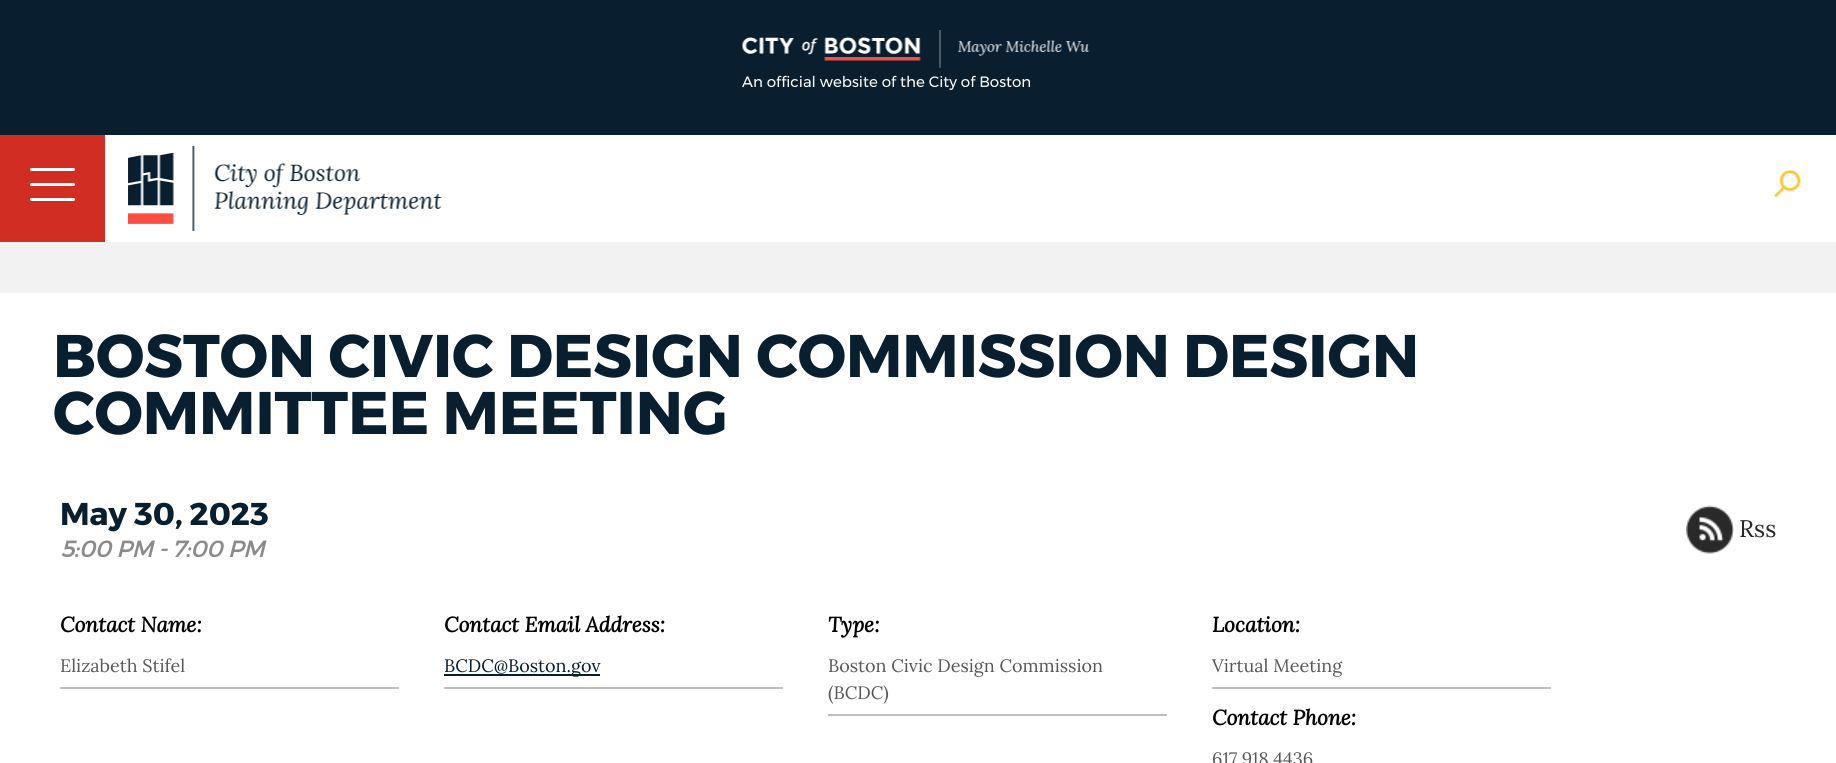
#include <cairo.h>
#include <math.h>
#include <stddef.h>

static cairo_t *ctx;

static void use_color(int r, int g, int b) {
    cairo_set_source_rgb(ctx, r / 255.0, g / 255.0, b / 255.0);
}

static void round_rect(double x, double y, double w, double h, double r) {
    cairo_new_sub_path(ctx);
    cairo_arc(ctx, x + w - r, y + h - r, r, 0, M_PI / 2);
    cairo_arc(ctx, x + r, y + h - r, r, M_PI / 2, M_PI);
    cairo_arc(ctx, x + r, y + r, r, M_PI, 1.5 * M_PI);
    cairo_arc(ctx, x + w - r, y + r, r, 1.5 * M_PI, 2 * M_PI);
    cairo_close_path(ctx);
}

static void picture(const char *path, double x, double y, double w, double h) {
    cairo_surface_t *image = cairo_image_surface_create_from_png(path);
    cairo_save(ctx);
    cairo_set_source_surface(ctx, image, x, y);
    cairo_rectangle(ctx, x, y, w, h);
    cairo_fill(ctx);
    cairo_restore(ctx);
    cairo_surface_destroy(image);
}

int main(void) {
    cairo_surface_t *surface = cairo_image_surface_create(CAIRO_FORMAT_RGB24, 1836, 763);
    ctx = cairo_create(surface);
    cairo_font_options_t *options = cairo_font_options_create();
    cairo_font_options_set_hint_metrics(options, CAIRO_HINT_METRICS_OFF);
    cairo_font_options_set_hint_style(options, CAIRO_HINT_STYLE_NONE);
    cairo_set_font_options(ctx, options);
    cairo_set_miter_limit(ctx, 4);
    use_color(242, 242, 242);
    cairo_paint(ctx);
    use_color(9, 31, 47);
    cairo_rectangle(ctx, 0, 0, 1836, 135);
    cairo_fill(ctx);
    picture("img1.png", 742, 30, 348, 38);
    cairo_select_font_face(ctx, "Montserrat", CAIRO_FONT_SLANT_NORMAL, CAIRO_FONT_WEIGHT_NORMAL);
    cairo_set_font_size(ctx, 15);
    use_color(255, 255, 255);
    cairo_move_to(ctx, 742, 87);
    cairo_show_text(ctx, "An official website of the City of Boston");
    use_color(210, 45, 35);
    cairo_rectangle(ctx, 0, 135, 105, 107);
    cairo_fill(ctx);
    use_color(255, 255, 255);
    round_rect(30, 198, 45, 3, 1.5);
    cairo_fill(ctx);
    round_rect(30, 168, 45, 3, 1.5);
    cairo_fill(ctx);
    round_rect(30, 183, 45, 3, 1.5);
    cairo_fill(ctx);
    cairo_rectangle(ctx, 105, 135, 1731, 107);
    cairo_fill(ctx);
    picture("img2.png", 128, 146, 314, 85);
    picture("img3.png", 1773, 170, 28, 28);
    cairo_rectangle(ctx, 0, 293, 1836, 470);
    cairo_fill(ctx);
    cairo_select_font_face(ctx, "Montserrat", CAIRO_FONT_SLANT_NORMAL, CAIRO_FONT_WEIGHT_BOLD);
    cairo_set_font_size(ctx, 60);
    use_color(9, 31, 47);
    cairo_move_to(ctx, 53, 377);
    cairo_show_text(ctx, "BOSTON CIVIC DESIGN COMMISSION DESIGN");
    cairo_move_to(ctx, 53, 434);
    cairo_show_text(ctx, "COMMITTEE MEETING");
    cairo_set_font_size(ctx, 31.5);
    cairo_move_to(ctx, 60, 525);
    cairo_show_text(ctx, "May 30, 2023");
    picture("img4.png", 1686, 505, 48, 49);
    cairo_select_font_face(ctx, "Lora", CAIRO_FONT_SLANT_NORMAL, CAIRO_FONT_WEIGHT_NORMAL);
    cairo_set_font_size(ctx, 24);
    use_color(41, 41, 41);
    cairo_move_to(ctx, 1739, 537);
    cairo_show_text(ctx, "Rss");
    cairo_select_font_face(ctx, "Montserrat", CAIRO_FONT_SLANT_ITALIC, CAIRO_FONT_WEIGHT_BOLD);
    cairo_set_font_size(ctx, 22.5);
    use_color(139, 139, 139);
    cairo_move_to(ctx, 60, 557);
    cairo_show_text(ctx, "5:00 PM - 7:00 PM");
    use_color(190, 190, 190);
    cairo_rectangle(ctx, 60, 687, 339, 2);
    cairo_fill(ctx);
    cairo_select_font_face(ctx, "Lora", CAIRO_FONT_SLANT_ITALIC, CAIRO_FONT_WEIGHT_BOLD);
    cairo_set_font_size(ctx, 21);
    use_color(0, 0, 0);
    cairo_move_to(ctx, 60, 632);
    cairo_show_text(ctx, "Contact Name:");
    cairo_select_font_face(ctx, "Lora", CAIRO_FONT_SLANT_NORMAL, CAIRO_FONT_WEIGHT_NORMAL);
    cairo_set_font_size(ctx, 18);
    use_color(88, 88, 91);
    cairo_move_to(ctx, 60, 672);
    cairo_show_text(ctx, "Elizabeth Stifel");
    use_color(190, 190, 190);
    cairo_rectangle(ctx, 444, 687, 339, 2);
    cairo_fill(ctx);
    cairo_select_font_face(ctx, "Lora", CAIRO_FONT_SLANT_ITALIC, CAIRO_FONT_WEIGHT_BOLD);
    cairo_set_font_size(ctx, 21);
    use_color(0, 0, 0);
    cairo_move_to(ctx, 444, 632);
    cairo_show_text(ctx, "Contact Email Address:");
    use_color(9, 31, 47);
    cairo_rectangle(ctx, 444, 674, 156, 2);
    cairo_fill(ctx);
    cairo_select_font_face(ctx, "Lora", CAIRO_FONT_SLANT_NORMAL, CAIRO_FONT_WEIGHT_NORMAL);
    cairo_set_font_size(ctx, 18);
    cairo_move_to(ctx, 444, 672);
    cairo_show_text(ctx, "BCDC@Boston.gov");
    use_color(190, 190, 190);
    cairo_rectangle(ctx, 828, 714, 339, 2);
    cairo_fill(ctx);
    cairo_select_font_face(ctx, "Lora", CAIRO_FONT_SLANT_ITALIC, CAIRO_FONT_WEIGHT_BOLD);
    cairo_set_font_size(ctx, 21);
    use_color(0, 0, 0);
    cairo_move_to(ctx, 828, 632);
    cairo_show_text(ctx, "Type:");
    cairo_select_font_face(ctx, "Lora", CAIRO_FONT_SLANT_NORMAL, CAIRO_FONT_WEIGHT_NORMAL);
    cairo_set_font_size(ctx, 18);
    use_color(88, 88, 91);
    cairo_move_to(ctx, 828, 672);
    cairo_show_text(ctx, "Boston Civic Design Commission");
    cairo_move_to(ctx, 828, 699);
    cairo_show_text(ctx, "(BCDC)");
    use_color(190, 190, 190);
    cairo_rectangle(ctx, 1212, 687, 339, 2);
    cairo_fill(ctx);
    cairo_select_font_face(ctx, "Lora", CAIRO_FONT_SLANT_ITALIC, CAIRO_FONT_WEIGHT_BOLD);
    cairo_set_font_size(ctx, 21);
    use_color(0, 0, 0);
    cairo_move_to(ctx, 1212, 632);
    cairo_show_text(ctx, "Location:");
    cairo_select_font_face(ctx, "Lora", CAIRO_FONT_SLANT_NORMAL, CAIRO_FONT_WEIGHT_NORMAL);
    cairo_set_font_size(ctx, 18);
    use_color(88, 88, 91);
    cairo_move_to(ctx, 1212, 672);
    cairo_show_text(ctx, "Virtual Meeting");
    cairo_select_font_face(ctx, "Lora", CAIRO_FONT_SLANT_ITALIC, CAIRO_FONT_WEIGHT_BOLD);
    cairo_set_font_size(ctx, 21);
    use_color(0, 0, 0);
    cairo_move_to(ctx, 1212, 725);
    cairo_show_text(ctx, "Contact Phone:");
    cairo_select_font_face(ctx, "Lora", CAIRO_FONT_SLANT_NORMAL, CAIRO_FONT_WEIGHT_NORMAL);
    cairo_set_font_size(ctx, 18);
    use_color(88, 88, 91);
    cairo_move_to(ctx, 1212, 765);
    cairo_show_text(ctx, "617.918.4436");
    cairo_surface_write_to_png(surface, "result.png");
    cairo_font_options_destroy(options);
    cairo_destroy(ctx);
    cairo_surface_destroy(surface);
    return 0;
}
